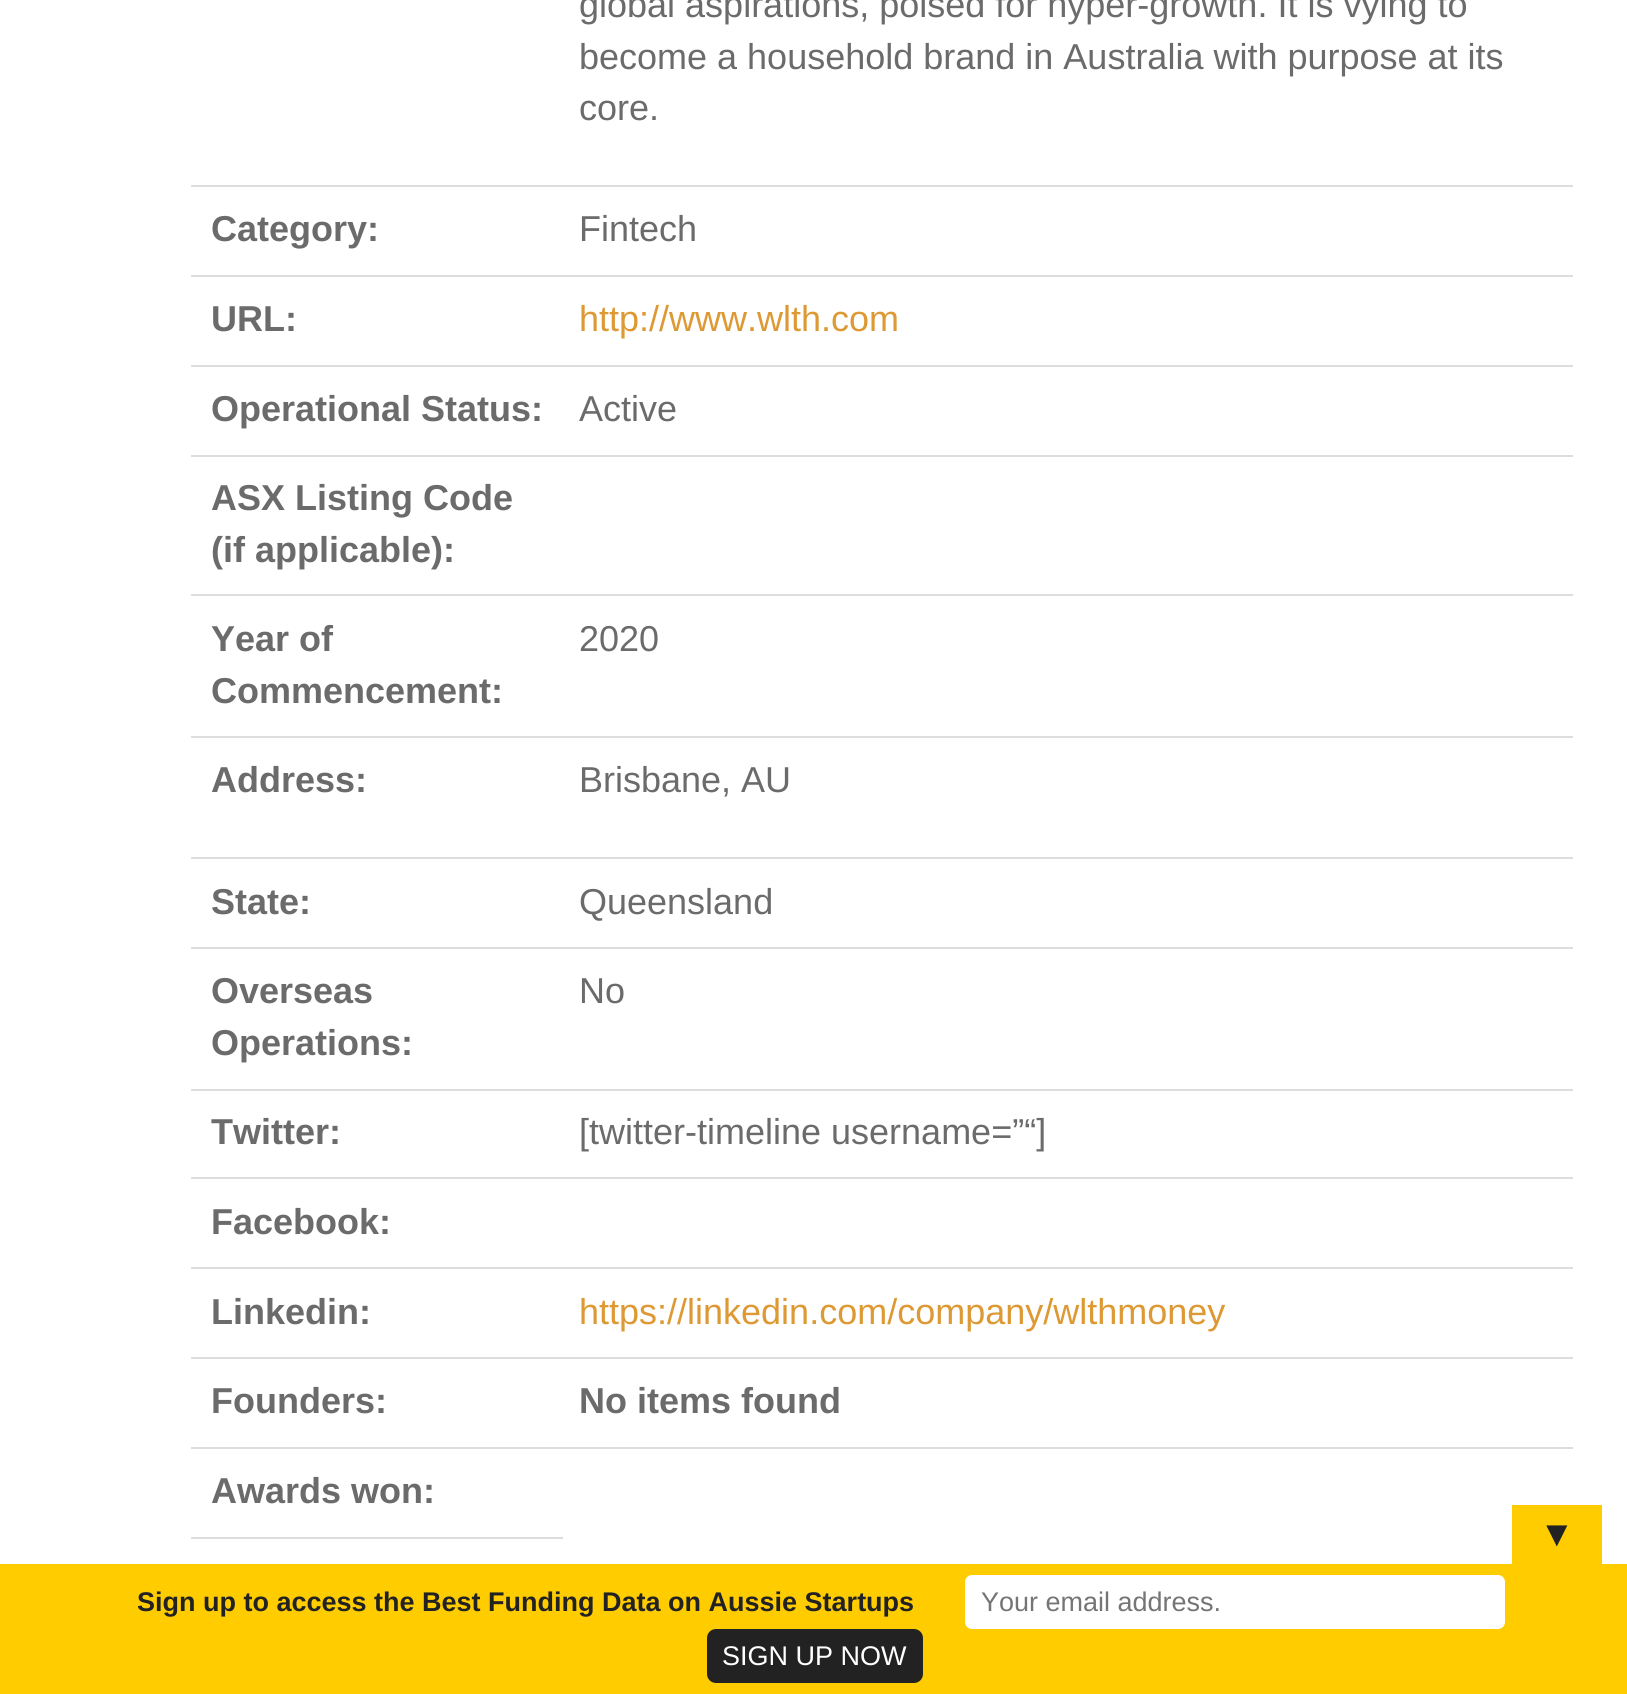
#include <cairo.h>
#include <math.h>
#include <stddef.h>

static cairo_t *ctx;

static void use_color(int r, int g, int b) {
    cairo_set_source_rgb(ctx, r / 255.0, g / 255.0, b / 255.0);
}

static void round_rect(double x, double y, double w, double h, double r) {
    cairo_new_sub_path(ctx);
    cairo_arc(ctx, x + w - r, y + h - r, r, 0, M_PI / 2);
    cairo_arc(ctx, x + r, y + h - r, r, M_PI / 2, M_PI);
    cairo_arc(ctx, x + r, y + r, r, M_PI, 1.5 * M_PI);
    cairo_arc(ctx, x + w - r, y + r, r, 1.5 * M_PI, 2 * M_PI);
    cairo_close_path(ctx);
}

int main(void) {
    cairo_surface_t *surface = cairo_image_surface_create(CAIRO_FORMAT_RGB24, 1627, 1694);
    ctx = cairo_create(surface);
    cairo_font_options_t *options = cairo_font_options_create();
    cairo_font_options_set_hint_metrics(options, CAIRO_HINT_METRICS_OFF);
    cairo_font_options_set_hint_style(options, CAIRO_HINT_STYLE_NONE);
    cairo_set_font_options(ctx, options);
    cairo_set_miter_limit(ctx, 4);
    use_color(255, 255, 255);
    cairo_paint(ctx);
    cairo_select_font_face(ctx, "Liberation Sans", CAIRO_FONT_SLANT_NORMAL, CAIRO_FONT_WEIGHT_NORMAL);
    cairo_set_font_size(ctx, 36);
    use_color(107, 107, 107);
    cairo_move_to(ctx, 579, 17);
    cairo_show_text(ctx, "global aspirations, poised for hyper-growth. It is vying to");
    cairo_move_to(ctx, 579, 69);
    cairo_show_text(ctx, "become a household brand in Australia with purpose at its");
    cairo_move_to(ctx, 579, 120);
    cairo_show_text(ctx, "core.");
    cairo_select_font_face(ctx, "Liberation Sans", CAIRO_FONT_SLANT_NORMAL, CAIRO_FONT_WEIGHT_BOLD);
    cairo_move_to(ctx, 211, 241);
    cairo_show_text(ctx, "Category:");
    use_color(221, 221, 221);
    cairo_rectangle(ctx, 191, 185, 1382, 2);
    cairo_fill(ctx);
    cairo_select_font_face(ctx, "Liberation Sans", CAIRO_FONT_SLANT_NORMAL, CAIRO_FONT_WEIGHT_NORMAL);
    use_color(107, 107, 107);
    cairo_move_to(ctx, 579, 241);
    cairo_show_text(ctx, "Fintech");
    cairo_select_font_face(ctx, "Liberation Sans", CAIRO_FONT_SLANT_NORMAL, CAIRO_FONT_WEIGHT_BOLD);
    cairo_move_to(ctx, 211, 331);
    cairo_show_text(ctx, "URL:");
    use_color(221, 221, 221);
    cairo_rectangle(ctx, 191, 275, 1382, 2);
    cairo_fill(ctx);
    cairo_select_font_face(ctx, "Liberation Sans", CAIRO_FONT_SLANT_NORMAL, CAIRO_FONT_WEIGHT_NORMAL);
    use_color(221, 153, 51);
    cairo_move_to(ctx, 579, 331);
    cairo_show_text(ctx, "http://www.wlth.com");
    cairo_select_font_face(ctx, "Liberation Sans", CAIRO_FONT_SLANT_NORMAL, CAIRO_FONT_WEIGHT_BOLD);
    use_color(107, 107, 107);
    cairo_move_to(ctx, 211, 421);
    cairo_show_text(ctx, "Operational Status:");
    use_color(221, 221, 221);
    cairo_rectangle(ctx, 191, 365, 1382, 2);
    cairo_fill(ctx);
    cairo_select_font_face(ctx, "Liberation Sans", CAIRO_FONT_SLANT_NORMAL, CAIRO_FONT_WEIGHT_NORMAL);
    use_color(107, 107, 107);
    cairo_move_to(ctx, 579, 421);
    cairo_show_text(ctx, "Active");
    use_color(221, 221, 221);
    cairo_rectangle(ctx, 191, 455, 1382, 2);
    cairo_fill(ctx);
    cairo_select_font_face(ctx, "Liberation Sans", CAIRO_FONT_SLANT_NORMAL, CAIRO_FONT_WEIGHT_BOLD);
    use_color(107, 107, 107);
    cairo_move_to(ctx, 211, 510);
    cairo_show_text(ctx, "ASX Listing Code");
    cairo_move_to(ctx, 211, 562);
    cairo_show_text(ctx, "(if applicable):");
    cairo_move_to(ctx, 211, 651);
    cairo_show_text(ctx, "Year of");
    cairo_move_to(ctx, 211, 703);
    cairo_show_text(ctx, "Commencement:");
    use_color(221, 221, 221);
    cairo_rectangle(ctx, 191, 594, 1382, 2);
    cairo_fill(ctx);
    cairo_select_font_face(ctx, "Liberation Sans", CAIRO_FONT_SLANT_NORMAL, CAIRO_FONT_WEIGHT_NORMAL);
    use_color(107, 107, 107);
    cairo_move_to(ctx, 579, 651);
    cairo_show_text(ctx, "2020");
    cairo_select_font_face(ctx, "Liberation Sans", CAIRO_FONT_SLANT_NORMAL, CAIRO_FONT_WEIGHT_BOLD);
    cairo_move_to(ctx, 211, 792);
    cairo_show_text(ctx, "Address:");
    use_color(221, 221, 221);
    cairo_rectangle(ctx, 191, 736, 1382, 2);
    cairo_fill(ctx);
    cairo_select_font_face(ctx, "Liberation Sans", CAIRO_FONT_SLANT_NORMAL, CAIRO_FONT_WEIGHT_NORMAL);
    use_color(107, 107, 107);
    cairo_move_to(ctx, 579, 792);
    cairo_show_text(ctx, "Brisbane, AU");
    cairo_select_font_face(ctx, "Liberation Sans", CAIRO_FONT_SLANT_NORMAL, CAIRO_FONT_WEIGHT_BOLD);
    cairo_move_to(ctx, 211, 914);
    cairo_show_text(ctx, "State:");
    use_color(221, 221, 221);
    cairo_rectangle(ctx, 191, 857, 1382, 2);
    cairo_fill(ctx);
    cairo_select_font_face(ctx, "Liberation Sans", CAIRO_FONT_SLANT_NORMAL, CAIRO_FONT_WEIGHT_NORMAL);
    use_color(107, 107, 107);
    cairo_move_to(ctx, 579, 914);
    cairo_show_text(ctx, "Queensland");
    cairo_select_font_face(ctx, "Liberation Sans", CAIRO_FONT_SLANT_NORMAL, CAIRO_FONT_WEIGHT_BOLD);
    cairo_move_to(ctx, 211, 1003);
    cairo_show_text(ctx, "Overseas");
    cairo_move_to(ctx, 211, 1055);
    cairo_show_text(ctx, "Operations:");
    use_color(221, 221, 221);
    cairo_rectangle(ctx, 191, 947, 1382, 2);
    cairo_fill(ctx);
    cairo_select_font_face(ctx, "Liberation Sans", CAIRO_FONT_SLANT_NORMAL, CAIRO_FONT_WEIGHT_NORMAL);
    use_color(107, 107, 107);
    cairo_move_to(ctx, 579, 1003);
    cairo_show_text(ctx, "No");
    cairo_select_font_face(ctx, "Liberation Sans", CAIRO_FONT_SLANT_NORMAL, CAIRO_FONT_WEIGHT_BOLD);
    cairo_move_to(ctx, 211, 1144);
    cairo_show_text(ctx, "Twitter:");
    use_color(221, 221, 221);
    cairo_rectangle(ctx, 191, 1089, 1382, 2);
    cairo_fill(ctx);
    cairo_select_font_face(ctx, "Liberation Sans", CAIRO_FONT_SLANT_NORMAL, CAIRO_FONT_WEIGHT_NORMAL);
    use_color(107, 107, 107);
    cairo_move_to(ctx, 579, 1144);
    cairo_show_text(ctx, "[twitter-timeline username=”“]");
    use_color(221, 221, 221);
    cairo_rectangle(ctx, 191, 1177, 1382, 2);
    cairo_fill(ctx);
    cairo_select_font_face(ctx, "Liberation Sans", CAIRO_FONT_SLANT_NORMAL, CAIRO_FONT_WEIGHT_BOLD);
    use_color(107, 107, 107);
    cairo_move_to(ctx, 211, 1234);
    cairo_show_text(ctx, "Facebook:");
    cairo_move_to(ctx, 211, 1324);
    cairo_show_text(ctx, "Linkedin:");
    use_color(221, 221, 221);
    cairo_rectangle(ctx, 191, 1267, 1382, 2);
    cairo_fill(ctx);
    cairo_select_font_face(ctx, "Liberation Sans", CAIRO_FONT_SLANT_NORMAL, CAIRO_FONT_WEIGHT_NORMAL);
    use_color(221, 153, 51);
    cairo_move_to(ctx, 579, 1324);
    cairo_show_text(ctx, "https://linkedin.com/company/wlthmoney");
    cairo_select_font_face(ctx, "Liberation Sans", CAIRO_FONT_SLANT_NORMAL, CAIRO_FONT_WEIGHT_BOLD);
    use_color(107, 107, 107);
    cairo_move_to(ctx, 211, 1413);
    cairo_show_text(ctx, "Founders:");
    use_color(221, 221, 221);
    cairo_rectangle(ctx, 191, 1357, 1382, 2);
    cairo_fill(ctx);
    use_color(107, 107, 107);
    cairo_move_to(ctx, 579, 1413);
    cairo_show_text(ctx, "No items found");
    use_color(221, 221, 221);
    cairo_rectangle(ctx, 191, 1447, 1382, 2);
    cairo_fill(ctx);
    use_color(107, 107, 107);
    cairo_move_to(ctx, 211, 1503);
    cairo_show_text(ctx, "Awards won:");
    use_color(221, 221, 221);
    cairo_rectangle(ctx, 191, 1537, 372, 2);
    cairo_fill(ctx);
    use_color(255, 204, 0);
    cairo_rectangle(ctx, 1512, 1505, 90, 59);
    cairo_fill(ctx);
    cairo_select_font_face(ctx, "Liberation Sans", CAIRO_FONT_SLANT_NORMAL, CAIRO_FONT_WEIGHT_NORMAL);
    use_color(34, 34, 34);
    cairo_move_to(ctx, 1539, 1546);
    cairo_show_text(ctx, "▼");
    use_color(255, 204, 0);
    cairo_rectangle(ctx, 0, 1564, 1627, 130);
    cairo_fill(ctx);
    cairo_select_font_face(ctx, "Liberation Sans", CAIRO_FONT_SLANT_NORMAL, CAIRO_FONT_WEIGHT_BOLD);
    cairo_set_font_size(ctx, 27);
    use_color(34, 34, 34);
    cairo_move_to(ctx, 137, 1611);
    cairo_show_text(ctx, "Sign up to access the Best Funding Data on Aussie Startups");
    use_color(255, 255, 255);
    round_rect(966, 1576, 538, 52, 6);
    cairo_fill_preserve(ctx);
    cairo_stroke(ctx);
    cairo_select_font_face(ctx, "Liberation Sans", CAIRO_FONT_SLANT_NORMAL, CAIRO_FONT_WEIGHT_NORMAL);
    use_color(117, 117, 117);
    cairo_move_to(ctx, 981, 1611);
    cairo_show_text(ctx, "Your email address.");
    use_color(34, 34, 34);
    round_rect(708, 1630, 214, 52, 8);
    cairo_fill_preserve(ctx);
    cairo_stroke(ctx);
    use_color(255, 255, 255);
    cairo_move_to(ctx, 722, 1665);
    cairo_show_text(ctx, "SIGN UP NOW");
    cairo_surface_write_to_png(surface, "result.png");
    cairo_font_options_destroy(options);
    cairo_destroy(ctx);
    cairo_surface_destroy(surface);
    return 0;
}
